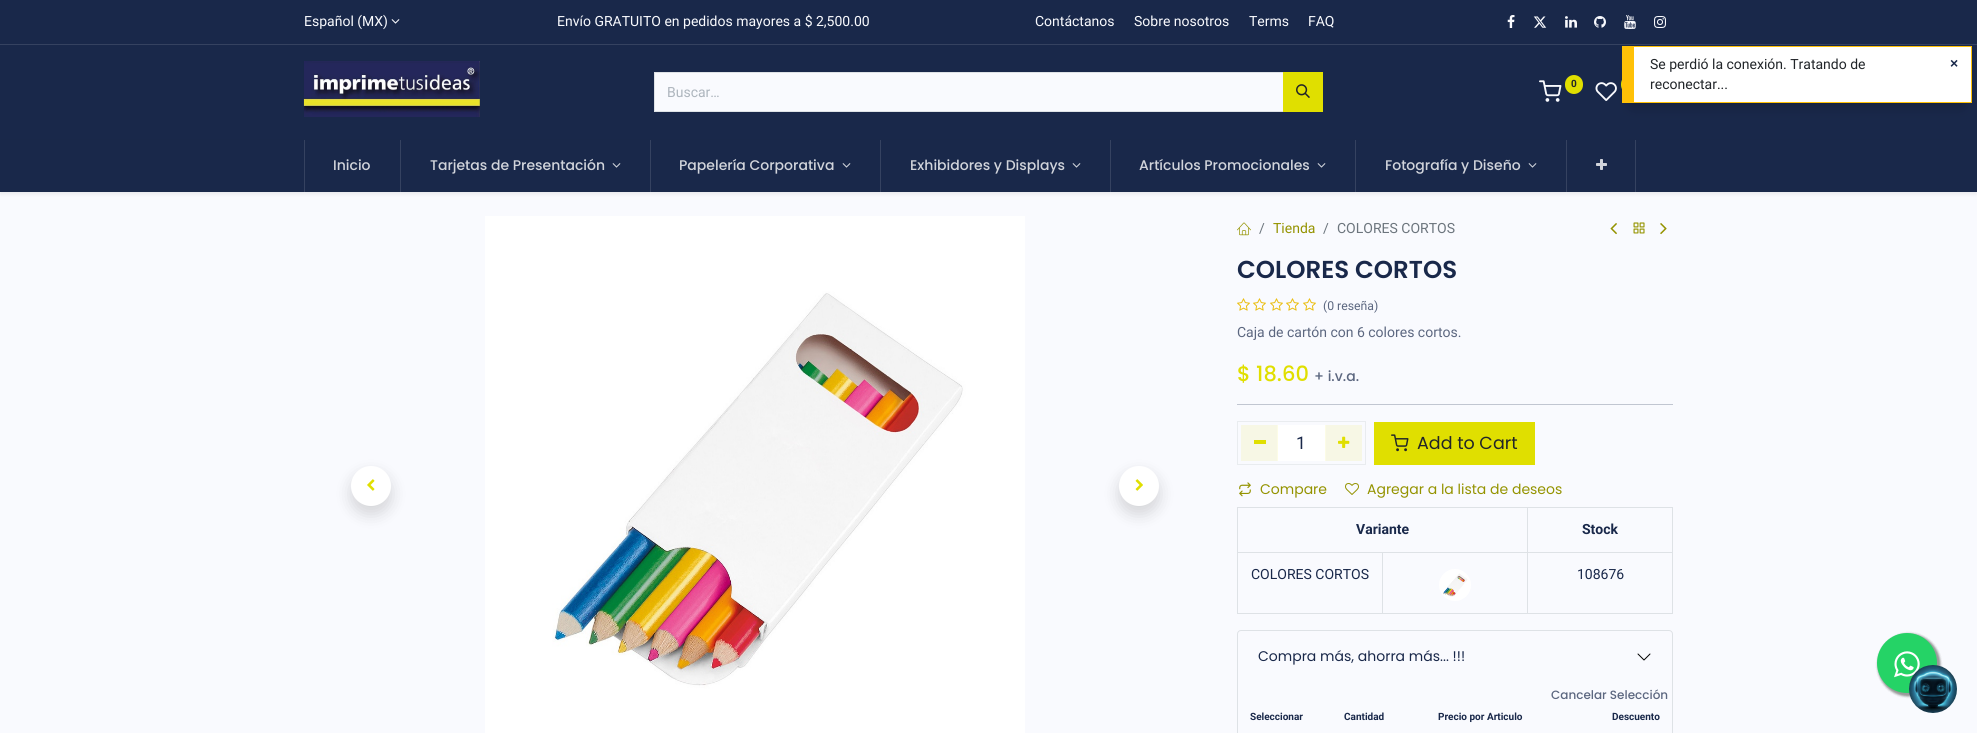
#include <cairo.h>
#include <math.h>
#include <stddef.h>

static cairo_t *ctx;

static void use_color(int r, int g, int b) {
    cairo_set_source_rgb(ctx, r / 255.0, g / 255.0, b / 255.0);
}

static void round_rect(double x, double y, double w, double h, double r) {
    cairo_new_sub_path(ctx);
    cairo_arc(ctx, x + w - r, y + h - r, r, 0, M_PI / 2);
    cairo_arc(ctx, x + r, y + h - r, r, M_PI / 2, M_PI);
    cairo_arc(ctx, x + r, y + r, r, M_PI, 1.5 * M_PI);
    cairo_arc(ctx, x + w - r, y + r, r, 1.5 * M_PI, 2 * M_PI);
    cairo_close_path(ctx);
}

static void shadow(double x, double y, double w, double h, double r, double blur, double alpha) {
    cairo_push_group_with_content(ctx, CAIRO_CONTENT_ALPHA);
    cairo_set_operator(ctx, CAIRO_OPERATOR_SOURCE);
    for (int i = 15; i >= -15 && fmin(w, h) + blur * i / 3 > 0; i -= 2) {
        double e = blur * i / 6;
        cairo_set_source_rgba(ctx, 0, 0, 0, alpha * erfc((i - 1) / 8.5) / 2);
        round_rect(x - e, y - e, w + 2 * e, h + 2 * e, fmax(0, fmin(r + e + blur * .6, fmin(w, h) / 2 + e)));
        cairo_fill(ctx);
    }
    cairo_pattern_t *soft = cairo_pop_group(ctx);
    cairo_mask(ctx, soft);
    cairo_pattern_destroy(soft);
}

static void picture(const char *path, double x, double y, double w, double h) {
    cairo_surface_t *image = cairo_image_surface_create_from_png(path);
    cairo_save(ctx);
    cairo_set_source_surface(ctx, image, x, y);
    cairo_rectangle(ctx, x, y, w, h);
    cairo_fill(ctx);
    cairo_restore(ctx);
    cairo_surface_destroy(image);
}

int main(void) {
    cairo_surface_t *surface = cairo_image_surface_create(CAIRO_FORMAT_RGB24, 1977, 733);
    ctx = cairo_create(surface);
    cairo_font_options_t *options = cairo_font_options_create();
    cairo_font_options_set_hint_metrics(options, CAIRO_HINT_METRICS_OFF);
    cairo_font_options_set_hint_style(options, CAIRO_HINT_STYLE_NONE);
    cairo_set_font_options(ctx, options);
    cairo_set_miter_limit(ctx, 4);
    use_color(249, 250, 254);
    cairo_paint(ctx);
    use_color(247, 247, 229);
    cairo_rectangle(ctx, 1326, 425, 36, 36);
    cairo_fill(ctx);
    cairo_rectangle(ctx, 1241, 425, 36, 36);
    cairo_fill(ctx);
    use_color(25, 40, 74);
    cairo_rectangle(ctx, 0, 0, 1977, 44);
    cairo_fill(ctx);
    use_color(53, 66, 96);
    cairo_rectangle(ctx, 0, 44, 1977, 1);
    cairo_fill(ctx);
    cairo_select_font_face(ctx, "Roboto", CAIRO_FONT_SLANT_NORMAL, CAIRO_FONT_WEIGHT_NORMAL);
    cairo_set_font_size(ctx, 14);
    use_color(249, 250, 254);
    cairo_move_to(ctx, 304, 26);
    cairo_show_text(ctx, "Español (MX)");
    picture("img1.png", 391, 19, 9, 5);
    cairo_move_to(ctx, 557, 26);
    cairo_show_text(ctx, "Envío GRATUITO en pedidos mayores a $ 2,500.00");
    cairo_move_to(ctx, 1035, 26);
    cairo_show_text(ctx, "Contáctanos");
    cairo_move_to(ctx, 1134, 26);
    cairo_show_text(ctx, "Sobre nosotros");
    cairo_move_to(ctx, 1249, 26);
    cairo_show_text(ctx, "Terms");
    cairo_move_to(ctx, 1308, 26);
    cairo_show_text(ctx, "FAQ");
    picture("img2.png", 1507, 15, 8, 13);
    picture("img3.png", 1533, 16, 14, 12);
    picture("img4.png", 1565, 16, 12, 12);
    picture("img5.png", 1594, 16, 12, 12);
    picture("img6.png", 1624, 15, 12, 14);
    picture("img7.png", 1654, 16, 12, 12);
    use_color(25, 40, 74);
    cairo_rectangle(ctx, 0, 45, 1977, 95);
    cairo_fill(ctx);
    picture("img8.png", 303, 61, 177, 56);
    picture("img9.png", 1539, 80, 23, 22);
    use_color(224, 223, 0);
    round_rect(1565, 75, 18, 19, 9);
    cairo_fill(ctx);
    cairo_select_font_face(ctx, "Roboto", CAIRO_FONT_SLANT_NORMAL, CAIRO_FONT_WEIGHT_BOLD);
    cairo_set_font_size(ctx, 10);
    use_color(33, 37, 41);
    cairo_move_to(ctx, 1571, 87);
    cairo_show_text(ctx, "0");
    picture("img10.png", 1595, 82, 22, 19);
    use_color(224, 223, 0);
    round_rect(1621, 75, 18, 19, 9);
    cairo_fill(ctx);
    use_color(249, 250, 254);
    cairo_rectangle(ctx, 654.5, 72.5, 629, 39);
    cairo_fill_preserve(ctx);
    use_color(222, 226, 230);
    cairo_set_line_width(ctx, 1);
    cairo_stroke(ctx);
    cairo_select_font_face(ctx, "Roboto", CAIRO_FONT_SLANT_NORMAL, CAIRO_FONT_WEIGHT_NORMAL);
    cairo_set_font_size(ctx, 14);
    use_color(173, 181, 189);
    cairo_move_to(ctx, 667, 97);
    cairo_show_text(ctx, "Buscar…");
    use_color(224, 223, 0);
    cairo_rectangle(ctx, 1283, 72, 40, 40);
    cairo_fill(ctx);
    picture("img11.png", 1296, 84, 14, 14);
    use_color(0, 0, 0);
    shadow(0, 142, 1977, 52, 0, 2, 0.07);
    use_color(25, 40, 74);
    cairo_rectangle(ctx, 0, 140, 1977, 52);
    cairo_fill(ctx);
    use_color(53, 66, 96);
    cairo_rectangle(ctx, 304, 140, 1, 52);
    cairo_fill(ctx);
    cairo_select_font_face(ctx, "Poppins Medium", CAIRO_FONT_SLANT_NORMAL, CAIRO_FONT_WEIGHT_NORMAL);
    use_color(209, 212, 219);
    cairo_move_to(ctx, 333, 170);
    cairo_show_text(ctx, "Inicio");
    use_color(53, 66, 96);
    cairo_rectangle(ctx, 400, 140, 1, 52);
    cairo_fill(ctx);
    use_color(209, 212, 219);
    cairo_move_to(ctx, 430, 170);
    cairo_show_text(ctx, "Tarjetas de Presentación");
    picture("img12.png", 612, 163, 9, 5);
    use_color(53, 66, 96);
    cairo_rectangle(ctx, 650, 140, 1, 52);
    cairo_fill(ctx);
    use_color(209, 212, 219);
    cairo_move_to(ctx, 679, 170);
    cairo_show_text(ctx, "Papelería Corporativa");
    picture("img12.png", 842, 163, 9, 5);
    use_color(53, 66, 96);
    cairo_rectangle(ctx, 880, 140, 1, 52);
    cairo_fill(ctx);
    use_color(209, 212, 219);
    cairo_move_to(ctx, 910, 170);
    cairo_show_text(ctx, "Exhibidores y Displays");
    picture("img12.png", 1072, 163, 9, 5);
    use_color(53, 66, 96);
    cairo_rectangle(ctx, 1110, 140, 1, 52);
    cairo_fill(ctx);
    use_color(209, 212, 219);
    cairo_move_to(ctx, 1139, 170);
    cairo_show_text(ctx, "Artículos Promocionales");
    picture("img12.png", 1317, 163, 9, 5);
    use_color(53, 66, 96);
    cairo_rectangle(ctx, 1355, 140, 1, 52);
    cairo_fill(ctx);
    use_color(209, 212, 219);
    cairo_move_to(ctx, 1385, 170);
    cairo_show_text(ctx, "Fotografía y Diseño");
    picture("img12.png", 1528, 163, 9, 5);
    use_color(53, 66, 96);
    cairo_rectangle(ctx, 1635, 140, 1, 52);
    cairo_fill(ctx);
    cairo_rectangle(ctx, 1566, 140, 1, 52);
    cairo_fill(ctx);
    picture("img13.png", 1596, 159, 11, 11);
    use_color(0, 0, 0);
    shadow(351, 474, 40, 40, 20, 8, 0.15);
    use_color(255, 255, 255);
    cairo_arc(ctx, 371, 486, 20, 0, 2 * M_PI);
    cairo_fill(ctx);
    picture("img14.png", 367, 479, 8, 12);
    picture("img15.png", 485, 216, 540, 517);
    use_color(0, 0, 0);
    shadow(1119, 474, 40, 40, 20, 8, 0.15);
    use_color(255, 255, 255);
    cairo_arc(ctx, 1139, 486, 20, 0, 2 * M_PI);
    cairo_fill(ctx);
    picture("img16.png", 1135, 479, 8, 12);
    picture("img17.png", 1237, 222, 14, 14);
    cairo_select_font_face(ctx, "Roboto", CAIRO_FONT_SLANT_NORMAL, CAIRO_FONT_WEIGHT_NORMAL);
    use_color(108, 117, 125);
    cairo_move_to(ctx, 1259, 233);
    cairo_show_text(ctx, "/");
    use_color(148, 147, 0);
    cairo_move_to(ctx, 1273, 233);
    cairo_show_text(ctx, "Tienda");
    use_color(108, 117, 125);
    cairo_move_to(ctx, 1323, 233);
    cairo_show_text(ctx, "/");
    cairo_move_to(ctx, 1337, 233);
    cairo_show_text(ctx, "COLORES CORTOS");
    picture("img18.png", 1610, 223, 7, 12);
    picture("img19.png", 1633, 222, 12, 12);
    picture("img20.png", 1660, 223, 7, 12);
    cairo_select_font_face(ctx, "Poppins SemiBold", CAIRO_FONT_SLANT_NORMAL, CAIRO_FONT_WEIGHT_NORMAL);
    cairo_set_font_size(ctx, 24.5);
    use_color(25, 40, 74);
    cairo_move_to(ctx, 1237, 278);
    cairo_show_text(ctx, "COLORES CORTOS");
    picture("img21.png", 1237, 298, 13, 13);
    picture("img21.png", 1253, 298, 13, 13);
    picture("img21.png", 1270, 298, 13, 13);
    picture("img21.png", 1286, 298, 13, 13);
    picture("img21.png", 1303, 298, 13, 13);
    cairo_select_font_face(ctx, "Roboto", CAIRO_FONT_SLANT_NORMAL, CAIRO_FONT_WEIGHT_NORMAL);
    cairo_set_font_size(ctx, 12.25);
    use_color(92, 103, 128);
    cairo_move_to(ctx, 1323, 310);
    cairo_show_text(ctx, "(0 reseña)");
    cairo_set_font_size(ctx, 14);
    cairo_move_to(ctx, 1237, 337);
    cairo_show_text(ctx, "Caja de cartón con 6 colores cortos.");
    cairo_select_font_face(ctx, "Poppins Medium", CAIRO_FONT_SLANT_NORMAL, CAIRO_FONT_WEIGHT_NORMAL);
    cairo_set_font_size(ctx, 21);
    use_color(224, 223, 0);
    cairo_move_to(ctx, 1237, 381);
    cairo_show_text(ctx, "$ 18.60");
    cairo_set_font_size(ctx, 14);
    use_color(92, 103, 128);
    cairo_move_to(ctx, 1314, 381);
    cairo_show_text(ctx, "+ i.v.a.");
    use_color(193, 198, 209);
    cairo_rectangle(ctx, 1237, 404, 436, 1);
    cairo_fill(ctx);
    cairo_rectangle(ctx, 1237.5, 421.5, 128, 43);
    use_color(233, 236, 239);
    cairo_stroke(ctx);
    use_color(224, 223, 0);
    cairo_rectangle(ctx, 1254, 440, 12, 4);
    cairo_fill(ctx);
    use_color(255, 255, 255);
    cairo_rectangle(ctx, 1278, 425, 47, 36);
    cairo_fill(ctx);
    use_color(252, 252, 230);
    cairo_rectangle(ctx, 1325, 425, 1, 36);
    cairo_fill(ctx);
    cairo_rectangle(ctx, 1277, 425, 1, 36);
    cairo_fill(ctx);
    cairo_select_font_face(ctx, "Roboto", CAIRO_FONT_SLANT_NORMAL, CAIRO_FONT_WEIGHT_NORMAL);
    cairo_set_font_size(ctx, 17.5);
    use_color(25, 40, 74);
    cairo_move_to(ctx, 1296, 449);
    cairo_show_text(ctx, "1");
    picture("img22.png", 1338, 436, 12, 12);
    use_color(224, 223, 0);
    cairo_rectangle(ctx, 1374, 422, 161, 43);
    cairo_fill(ctx);
    picture("img23.png", 1391, 434, 18, 18);
    cairo_select_font_face(ctx, "Poppins", CAIRO_FONT_SLANT_NORMAL, CAIRO_FONT_WEIGHT_NORMAL);
    use_color(33, 37, 41);
    cairo_move_to(ctx, 1417, 449);
    cairo_show_text(ctx, "Add to Cart");
    picture("img24.png", 1239, 482, 12, 15);
    cairo_set_font_size(ctx, 14);
    use_color(148, 147, 0);
    cairo_move_to(ctx, 1260, 494);
    cairo_show_text(ctx, "Compare");
    picture("img25.png", 1345, 483, 14, 12);
    cairo_move_to(ctx, 1367, 494);
    cairo_show_text(ctx, "Agregar a la lista de deseos");
    use_color(222, 226, 230);
    cairo_rectangle(ctx, 1237, 507, 436, 1);
    cairo_fill(ctx);
    cairo_select_font_face(ctx, "Roboto", CAIRO_FONT_SLANT_NORMAL, CAIRO_FONT_WEIGHT_BOLD);
    use_color(25, 40, 74);
    cairo_move_to(ctx, 1356, 534);
    cairo_show_text(ctx, "Variante");
    cairo_move_to(ctx, 1582, 534);
    cairo_show_text(ctx, "Stock");
    use_color(222, 226, 230);
    cairo_rectangle(ctx, 1237, 552, 436, 1);
    cairo_fill(ctx);
    cairo_rectangle(ctx, 1237, 613, 436, 1);
    cairo_fill(ctx);
    cairo_rectangle(ctx, 1237, 507, 1, 107);
    cairo_fill(ctx);
    cairo_select_font_face(ctx, "Roboto", CAIRO_FONT_SLANT_NORMAL, CAIRO_FONT_WEIGHT_NORMAL);
    use_color(25, 40, 74);
    cairo_move_to(ctx, 1251, 579);
    cairo_show_text(ctx, "COLORES CORTOS");
    use_color(222, 226, 230);
    cairo_rectangle(ctx, 1382, 552, 1, 62);
    cairo_fill(ctx);
    picture("img26.png", 1439, 569, 32, 32);
    cairo_rectangle(ctx, 1672, 507, 1, 107);
    cairo_fill(ctx);
    cairo_rectangle(ctx, 1527, 507, 1, 107);
    cairo_fill(ctx);
    use_color(25, 40, 74);
    cairo_move_to(ctx, 1577, 579);
    cairo_show_text(ctx, "108676");
    cairo_new_path(ctx);
    cairo_move_to(ctx, 1241, 630.5);
    cairo_line_to(ctx, 1669, 630.5);
    cairo_curve_to(ctx, 1671, 630.5, 1672.5, 632, 1672.5, 634);
    cairo_line_to(ctx, 1672.5, 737.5);
    cairo_line_to(ctx, 1237.5, 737.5);
    cairo_line_to(ctx, 1237.5, 634);
    cairo_curve_to(ctx, 1237.5, 632, 1239, 630.5, 1241, 630.5);
    cairo_close_path(ctx);
    use_color(222, 226, 230);
    cairo_stroke(ctx);
    cairo_select_font_face(ctx, "Poppins", CAIRO_FONT_SLANT_NORMAL, CAIRO_FONT_WEIGHT_NORMAL);
    use_color(25, 40, 74);
    cairo_move_to(ctx, 1258, 661);
    cairo_show_text(ctx, "Compra más, ahorra más... !!!");
    picture("img27.png", 1637, 653, 14, 8);
    cairo_select_font_face(ctx, "Poppins Medium", CAIRO_FONT_SLANT_NORMAL, CAIRO_FONT_WEIGHT_NORMAL);
    cairo_set_font_size(ctx, 12);
    use_color(92, 103, 128);
    cairo_move_to(ctx, 1551, 699);
    cairo_show_text(ctx, "Cancelar Selección");
    cairo_select_font_face(ctx, "Roboto", CAIRO_FONT_SLANT_NORMAL, CAIRO_FONT_WEIGHT_BOLD);
    cairo_set_font_size(ctx, 10);
    use_color(25, 40, 74);
    cairo_move_to(ctx, 1250, 720);
    cairo_show_text(ctx, "Seleccionar");
    cairo_move_to(ctx, 1344, 720);
    cairo_show_text(ctx, "Cantidad");
    cairo_move_to(ctx, 1438, 720);
    cairo_show_text(ctx, "Precio por Articulo");
    cairo_move_to(ctx, 1612, 720);
    cairo_show_text(ctx, "Descuento");
    use_color(153, 153, 153);
    shadow(1879, 635, 60, 60, 30, 1.5, 1);
    shadow(1879, 635, 60, 60, 30, 1.5, 1);
    shadow(1879, 635, 60, 60, 30, 1.5, 1);
    shadow(1879, 635, 60, 60, 30, 1.5, 1);
    use_color(37, 211, 102);
    cairo_arc(ctx, 1907, 663, 30, 0, 2 * M_PI);
    cairo_fill(ctx);
    picture("img28.png", 1894, 651, 26, 27);
    use_color(0, 0, 0);
    shadow(1632, 68, 330, 37, 0, 7, 0.25);
    use_color(255, 255, 255);
    cairo_rectangle(ctx, 1634, 47, 337, 55);
    cairo_fill(ctx);
    use_color(255, 193, 7);
    cairo_rectangle(ctx, 1634, 46, 338, 1);
    cairo_fill(ctx);
    cairo_rectangle(ctx, 1971, 46, 1, 57);
    cairo_fill(ctx);
    cairo_rectangle(ctx, 1634, 102, 338, 1);
    cairo_fill(ctx);
    cairo_rectangle(ctx, 1622, 46, 12, 57);
    cairo_fill(ctx);
    cairo_select_font_face(ctx, "Roboto", CAIRO_FONT_SLANT_NORMAL, CAIRO_FONT_WEIGHT_NORMAL);
    cairo_set_font_size(ctx, 14);
    use_color(33, 37, 41);
    cairo_move_to(ctx, 1650, 69);
    cairo_show_text(ctx, "Se perdió la conexión. Tratando de");
    cairo_move_to(ctx, 1650, 89);
    cairo_show_text(ctx, "reconectar...");
    cairo_select_font_face(ctx, "Liberation Sans", CAIRO_FONT_SLANT_NORMAL, CAIRO_FONT_WEIGHT_BOLD);
    use_color(25, 40, 74);
    cairo_move_to(ctx, 1950, 68);
    cairo_show_text(ctx, "×");
    picture("img29.png", 1909, 665, 48, 48);
    cairo_surface_write_to_png(surface, "result.png");
    cairo_font_options_destroy(options);
    cairo_destroy(ctx);
    cairo_surface_destroy(surface);
    return 0;
}
